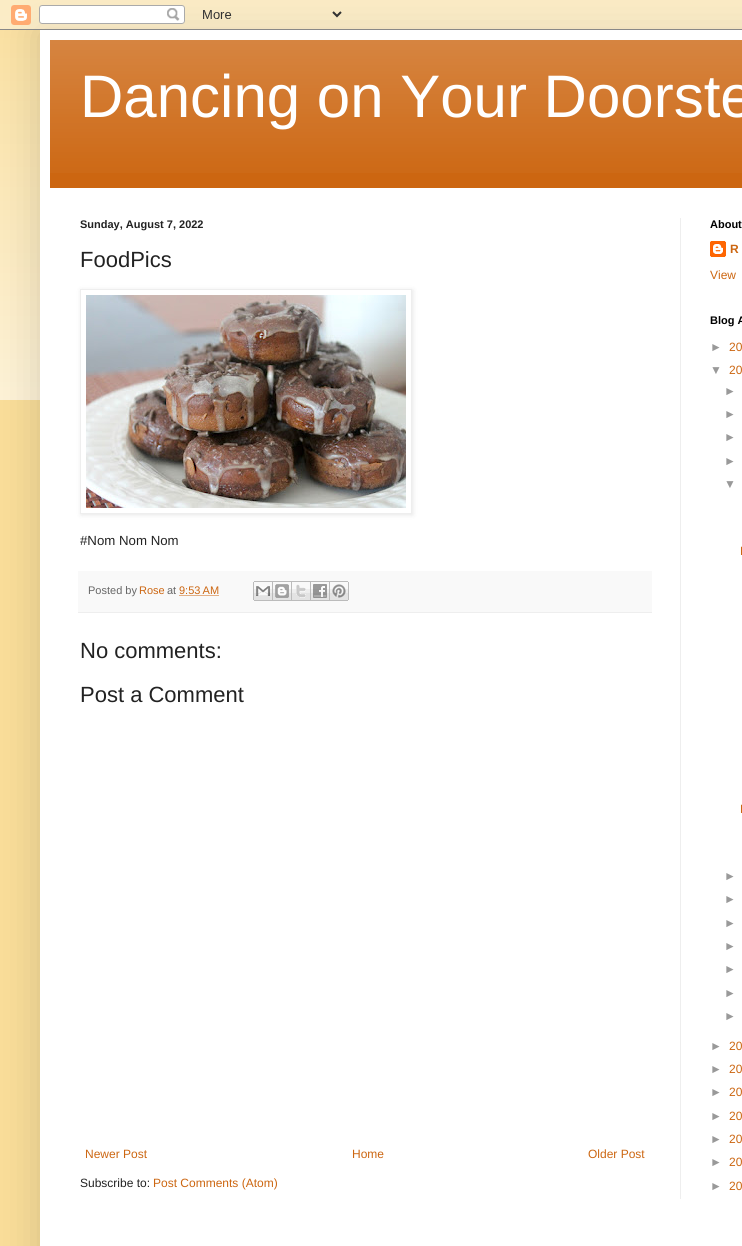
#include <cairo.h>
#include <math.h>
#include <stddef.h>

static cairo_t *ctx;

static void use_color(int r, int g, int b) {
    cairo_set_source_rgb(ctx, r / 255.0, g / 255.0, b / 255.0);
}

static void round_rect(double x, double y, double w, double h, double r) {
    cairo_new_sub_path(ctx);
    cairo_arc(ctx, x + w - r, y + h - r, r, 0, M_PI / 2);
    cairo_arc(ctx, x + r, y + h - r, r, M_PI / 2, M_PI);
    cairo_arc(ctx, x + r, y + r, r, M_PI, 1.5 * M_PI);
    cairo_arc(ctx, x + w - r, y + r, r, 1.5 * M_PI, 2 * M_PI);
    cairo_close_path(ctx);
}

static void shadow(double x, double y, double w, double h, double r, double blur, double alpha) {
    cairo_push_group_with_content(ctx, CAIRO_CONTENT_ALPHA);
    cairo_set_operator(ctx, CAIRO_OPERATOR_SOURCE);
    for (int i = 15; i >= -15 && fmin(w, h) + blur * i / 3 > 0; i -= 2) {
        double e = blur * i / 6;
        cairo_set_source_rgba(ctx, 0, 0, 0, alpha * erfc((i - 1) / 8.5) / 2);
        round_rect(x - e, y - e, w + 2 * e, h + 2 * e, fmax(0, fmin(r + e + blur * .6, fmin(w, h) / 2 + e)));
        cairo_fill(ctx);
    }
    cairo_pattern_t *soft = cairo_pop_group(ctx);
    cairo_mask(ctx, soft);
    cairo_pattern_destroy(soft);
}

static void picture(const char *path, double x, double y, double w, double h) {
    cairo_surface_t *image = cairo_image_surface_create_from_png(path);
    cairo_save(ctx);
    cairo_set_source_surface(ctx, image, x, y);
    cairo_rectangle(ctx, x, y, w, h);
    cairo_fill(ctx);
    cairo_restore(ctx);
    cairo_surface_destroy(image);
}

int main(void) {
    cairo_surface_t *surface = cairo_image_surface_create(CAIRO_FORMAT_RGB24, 742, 1246);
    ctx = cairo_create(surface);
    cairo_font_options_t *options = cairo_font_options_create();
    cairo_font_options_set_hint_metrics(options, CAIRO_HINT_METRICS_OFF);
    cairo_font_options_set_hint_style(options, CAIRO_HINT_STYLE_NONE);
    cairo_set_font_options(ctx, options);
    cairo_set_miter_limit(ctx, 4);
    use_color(249, 221, 153);
    cairo_paint(ctx);
    picture("img1.png", 0, 0, 742, 400);
    use_color(0, 0, 0);
    shadow(40, 30, 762, 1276, 0, 20, 0.15);
    picture("img2.png", 0, 0, 742, 30);
    use_color(255, 255, 255);
    cairo_rectangle(ctx, 40, 30, 702, 1216);
    cairo_fill(ctx);
    use_color(204, 102, 17);
    cairo_rectangle(ctx, 50, 40, 692, 148);
    cairo_fill(ctx);
    picture("img3.png", 50, 40, 692, 133);
    cairo_select_font_face(ctx, "Liberation Sans", CAIRO_FONT_SLANT_NORMAL, CAIRO_FONT_WEIGHT_NORMAL);
    cairo_set_font_size(ctx, 60);
    use_color(255, 255, 255);
    cairo_move_to(ctx, 80, 117);
    cairo_show_text(ctx, "Dancing on Your Doorste");
    use_color(238, 238, 238);
    cairo_rectangle(ctx, 680, 218, 1, 981);
    cairo_fill(ctx);
    cairo_select_font_face(ctx, "Liberation Sans", CAIRO_FONT_SLANT_NORMAL, CAIRO_FONT_WEIGHT_BOLD);
    cairo_set_font_size(ctx, 11);
    use_color(34, 34, 34);
    cairo_move_to(ctx, 80, 228);
    cairo_show_text(ctx, "Sunday, August 7, 2022");
    cairo_select_font_face(ctx, "Liberation Sans", CAIRO_FONT_SLANT_NORMAL, CAIRO_FONT_WEIGHT_NORMAL);
    cairo_set_font_size(ctx, 22);
    cairo_move_to(ctx, 80, 267);
    cairo_show_text(ctx, "FoodPics");
    cairo_save(ctx);
    cairo_set_fill_rule(ctx, CAIRO_FILL_RULE_EVEN_ODD);
    cairo_new_path(ctx);
    cairo_move_to(ctx, 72, 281);
    cairo_line_to(ctx, 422, 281);
    cairo_line_to(ctx, 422, 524);
    cairo_line_to(ctx, 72, 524);
    cairo_close_path(ctx);
    cairo_move_to(ctx, 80, 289);
    cairo_line_to(ctx, 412, 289);
    cairo_line_to(ctx, 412, 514);
    cairo_line_to(ctx, 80, 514);
    cairo_close_path(ctx);
    cairo_clip(ctx);
    use_color(0, 0, 0);
    shadow(81, 290, 332, 225, 0, 2.5, 0.1);
    cairo_restore(ctx);
    cairo_rectangle(ctx, 80.5, 289.5, 331, 224);
    use_color(238, 238, 238);
    cairo_set_line_width(ctx, 1);
    cairo_stroke(ctx);
    picture("img4.png", 86, 295, 320, 213);
    cairo_set_font_size(ctx, 13.25);
    use_color(34, 34, 34);
    cairo_move_to(ctx, 80, 545);
    cairo_show_text(ctx, "#Nom Nom Nom");
    use_color(249, 249, 249);
    cairo_rectangle(ctx, 78, 571, 574, 41);
    cairo_fill(ctx);
    use_color(238, 238, 238);
    cairo_rectangle(ctx, 78, 612, 574, 1);
    cairo_fill(ctx);
    cairo_set_font_size(ctx, 11);
    use_color(102, 102, 102);
    cairo_move_to(ctx, 88, 594);
    cairo_show_text(ctx, "Posted by");
    use_color(204, 102, 17);
    cairo_move_to(ctx, 139, 594);
    cairo_show_text(ctx, "Rose");
    use_color(102, 102, 102);
    cairo_move_to(ctx, 167, 594);
    cairo_show_text(ctx, "at");
    use_color(204, 102, 17);
    cairo_move_to(ctx, 179, 594);
    cairo_show_text(ctx, "9:53 AM");
    cairo_new_path(ctx);
    cairo_move_to(ctx, 179.5, 595.5);
    cairo_line_to(ctx, 218.5, 595.5);
    cairo_set_dash(ctx, (double[]){1, 1}, 2, 0);
    cairo_stroke(ctx);
    picture("img5.png", 253, 581, 20, 20);
    picture("img6.png", 273, 581, 19, 20);
    picture("img7.png", 292, 581, 19, 20);
    picture("img8.png", 311, 581, 19, 20);
    picture("img9.png", 330, 581, 19, 20);
    cairo_set_font_size(ctx, 22);
    use_color(34, 34, 34);
    cairo_move_to(ctx, 80, 658);
    cairo_show_text(ctx, "No comments:");
    cairo_move_to(ctx, 80, 702);
    cairo_show_text(ctx, "Post a Comment");
    cairo_set_font_size(ctx, 12);
    use_color(204, 102, 17);
    cairo_move_to(ctx, 85, 1158);
    cairo_show_text(ctx, "Newer Post");
    cairo_move_to(ctx, 352, 1158);
    cairo_show_text(ctx, "Home");
    cairo_move_to(ctx, 588, 1158);
    cairo_show_text(ctx, "Older Post");
    use_color(34, 34, 34);
    cairo_move_to(ctx, 80, 1187);
    cairo_show_text(ctx, "Subscribe to:");
    use_color(204, 102, 17);
    cairo_move_to(ctx, 153, 1187);
    cairo_show_text(ctx, "Post Comments (Atom)");
    cairo_select_font_face(ctx, "Liberation Sans", CAIRO_FONT_SLANT_NORMAL, CAIRO_FONT_WEIGHT_BOLD);
    cairo_set_font_size(ctx, 11);
    use_color(0, 0, 0);
    cairo_move_to(ctx, 710, 228);
    cairo_show_text(ctx, "About");
    picture("img10.png", 710, 241, 16, 16);
    cairo_set_font_size(ctx, 12);
    use_color(204, 102, 17);
    cairo_move_to(ctx, 730, 253);
    cairo_show_text(ctx, "R");
    cairo_select_font_face(ctx, "Liberation Sans", CAIRO_FONT_SLANT_NORMAL, CAIRO_FONT_WEIGHT_NORMAL);
    cairo_move_to(ctx, 710, 279);
    cairo_show_text(ctx, "View");
    cairo_select_font_face(ctx, "Liberation Sans", CAIRO_FONT_SLANT_NORMAL, CAIRO_FONT_WEIGHT_BOLD);
    cairo_set_font_size(ctx, 11);
    use_color(0, 0, 0);
    cairo_move_to(ctx, 710, 324);
    cairo_show_text(ctx, "Blog A");
    cairo_select_font_face(ctx, "Liberation Sans", CAIRO_FONT_SLANT_NORMAL, CAIRO_FONT_WEIGHT_NORMAL);
    cairo_set_font_size(ctx, 12);
    use_color(153, 153, 153);
    cairo_move_to(ctx, 710, 351);
    cairo_show_text(ctx, "►");
    use_color(204, 102, 17);
    cairo_move_to(ctx, 729, 351);
    cairo_show_text(ctx, "20");
    use_color(153, 153, 153);
    cairo_move_to(ctx, 710, 374);
    cairo_show_text(ctx, "▼");
    use_color(204, 102, 17);
    cairo_move_to(ctx, 729, 374);
    cairo_show_text(ctx, "20");
    use_color(153, 153, 153);
    cairo_move_to(ctx, 724, 395);
    cairo_show_text(ctx, "►");
    cairo_move_to(ctx, 724, 418);
    cairo_show_text(ctx, "►");
    cairo_move_to(ctx, 724, 441);
    cairo_show_text(ctx, "►");
    cairo_move_to(ctx, 724, 465);
    cairo_show_text(ctx, "►");
    cairo_move_to(ctx, 724, 488);
    cairo_show_text(ctx, "▼");
    use_color(204, 102, 17);
    cairo_move_to(ctx, 740, 555);
    cairo_show_text(ctx, "L");
    cairo_move_to(ctx, 740, 813);
    cairo_show_text(ctx, "L");
    use_color(153, 153, 153);
    cairo_move_to(ctx, 724, 880);
    cairo_show_text(ctx, "►");
    cairo_move_to(ctx, 724, 903);
    cairo_show_text(ctx, "►");
    cairo_move_to(ctx, 724, 927);
    cairo_show_text(ctx, "►");
    cairo_move_to(ctx, 724, 950);
    cairo_show_text(ctx, "►");
    cairo_move_to(ctx, 724, 973);
    cairo_show_text(ctx, "►");
    cairo_move_to(ctx, 724, 997);
    cairo_show_text(ctx, "►");
    cairo_move_to(ctx, 724, 1020);
    cairo_show_text(ctx, "►");
    cairo_move_to(ctx, 710, 1050);
    cairo_show_text(ctx, "►");
    use_color(204, 102, 17);
    cairo_move_to(ctx, 729, 1050);
    cairo_show_text(ctx, "20");
    use_color(153, 153, 153);
    cairo_move_to(ctx, 710, 1073);
    cairo_show_text(ctx, "►");
    use_color(204, 102, 17);
    cairo_move_to(ctx, 729, 1073);
    cairo_show_text(ctx, "20");
    use_color(153, 153, 153);
    cairo_move_to(ctx, 710, 1096);
    cairo_show_text(ctx, "►");
    use_color(204, 102, 17);
    cairo_move_to(ctx, 729, 1096);
    cairo_show_text(ctx, "20");
    use_color(153, 153, 153);
    cairo_move_to(ctx, 710, 1120);
    cairo_show_text(ctx, "►");
    use_color(204, 102, 17);
    cairo_move_to(ctx, 729, 1120);
    cairo_show_text(ctx, "20");
    use_color(153, 153, 153);
    cairo_move_to(ctx, 710, 1143);
    cairo_show_text(ctx, "►");
    use_color(204, 102, 17);
    cairo_move_to(ctx, 729, 1143);
    cairo_show_text(ctx, "20");
    use_color(153, 153, 153);
    cairo_move_to(ctx, 710, 1166);
    cairo_show_text(ctx, "►");
    use_color(204, 102, 17);
    cairo_move_to(ctx, 729, 1166);
    cairo_show_text(ctx, "20");
    use_color(153, 153, 153);
    cairo_move_to(ctx, 710, 1190);
    cairo_show_text(ctx, "►");
    use_color(204, 102, 17);
    cairo_move_to(ctx, 729, 1190);
    cairo_show_text(ctx, "20");
    cairo_surface_write_to_png(surface, "result.png");
    cairo_font_options_destroy(options);
    cairo_destroy(ctx);
    cairo_surface_destroy(surface);
    return 0;
}
